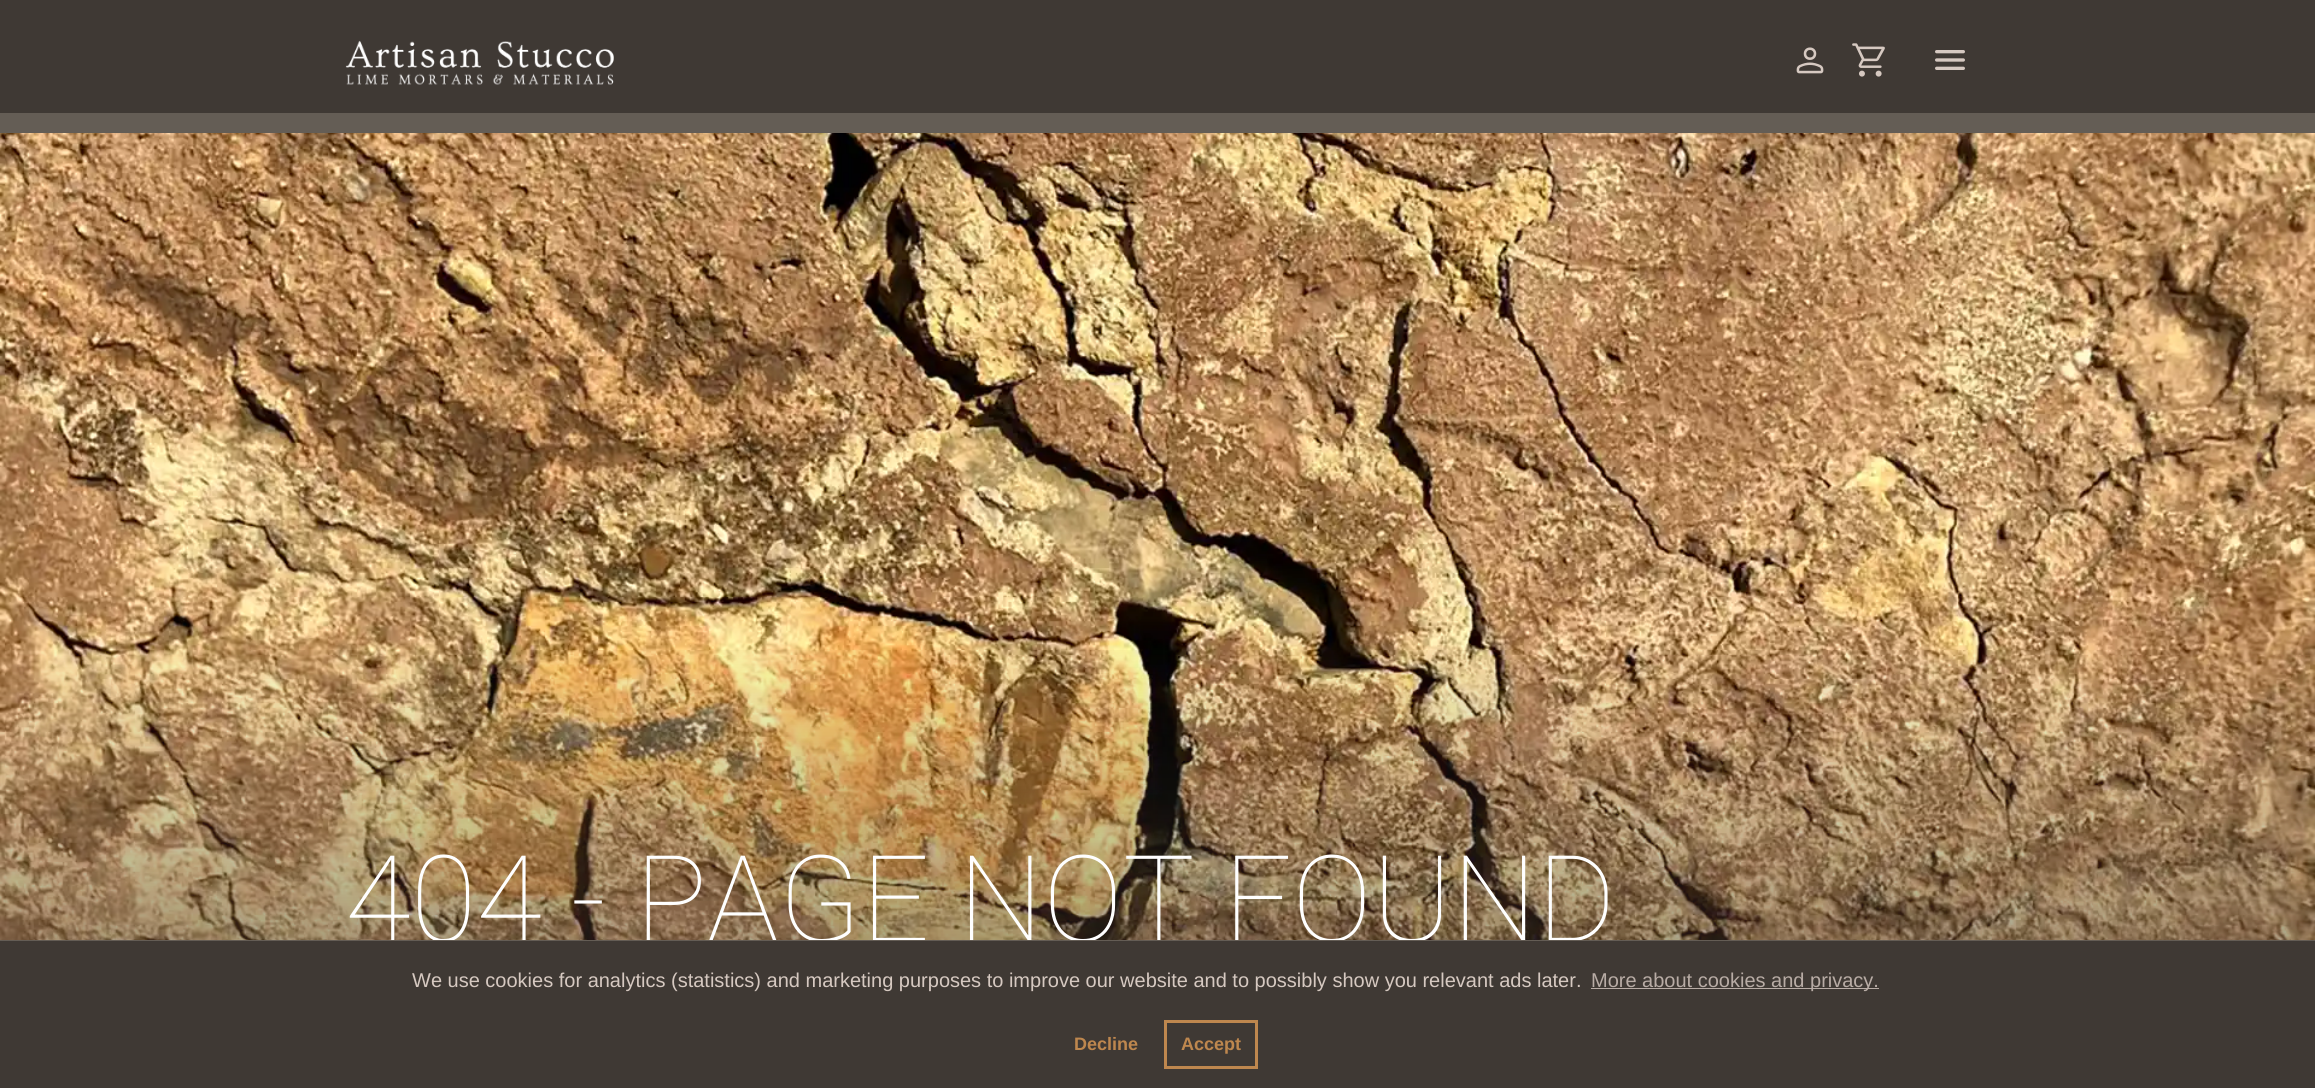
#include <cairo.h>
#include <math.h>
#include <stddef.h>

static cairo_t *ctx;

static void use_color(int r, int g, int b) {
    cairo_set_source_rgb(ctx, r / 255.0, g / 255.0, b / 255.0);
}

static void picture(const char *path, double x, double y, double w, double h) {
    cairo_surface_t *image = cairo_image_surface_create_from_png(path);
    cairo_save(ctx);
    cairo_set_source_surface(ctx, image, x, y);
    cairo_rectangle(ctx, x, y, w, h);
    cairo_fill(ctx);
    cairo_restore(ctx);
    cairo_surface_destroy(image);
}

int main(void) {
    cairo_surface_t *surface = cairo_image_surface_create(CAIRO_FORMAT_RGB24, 2315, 1088);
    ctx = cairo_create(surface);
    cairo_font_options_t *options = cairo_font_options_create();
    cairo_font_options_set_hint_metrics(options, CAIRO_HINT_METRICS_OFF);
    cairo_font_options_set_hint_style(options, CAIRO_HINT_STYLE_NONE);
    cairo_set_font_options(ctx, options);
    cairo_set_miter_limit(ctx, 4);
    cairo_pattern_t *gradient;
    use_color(255, 255, 255);
    cairo_paint(ctx);
    use_color(63, 57, 52);
    cairo_rectangle(ctx, 0, 0, 2315, 113);
    cairo_fill(ctx);
    use_color(100, 93, 85);
    cairo_rectangle(ctx, 0, 113, 2315, 20);
    cairo_fill(ctx);
    picture("img1.png", 345, 40, 269, 45);
    picture("img2.png", 1796, 47, 28, 27);
    picture("img3.png", 1852, 43, 33, 34);
    picture("img4.png", 1935, 50, 30, 20);
    picture("img5.png", 0, 133, 2315, 807);
    gradient = cairo_pattern_create_linear(1158, 634, 1158, 1069);
    cairo_pattern_add_color_stop_rgba(gradient, 0, 0.208, 0.188, 0.173, 0);
    cairo_pattern_add_color_stop_rgba(gradient, 1, 0.208, 0.188, 0.173, 0.6);
    cairo_set_source(ctx, gradient);
    cairo_pattern_destroy(gradient);
    cairo_rectangle(ctx, 0, 650, 2315, 290);
    cairo_fill(ctx);
    cairo_select_font_face(ctx, "Roboto Thin", CAIRO_FONT_SLANT_NORMAL, CAIRO_FONT_WEIGHT_NORMAL);
    cairo_set_font_size(ctx, 120);
    use_color(255, 255, 255);
    cairo_move_to(ctx, 345, 941);
    cairo_show_text(ctx, "404 - PAGE NOT FOUND");
    use_color(63, 57, 52);
    cairo_rectangle(ctx, 0, 941, 2315, 147);
    cairo_fill(ctx);
    use_color(100, 93, 85);
    cairo_rectangle(ctx, 0, 940, 2315, 1);
    cairo_fill(ctx);
    cairo_select_font_face(ctx, "Liberation Sans", CAIRO_FONT_SLANT_NORMAL, CAIRO_FONT_WEIGHT_NORMAL);
    cairo_set_font_size(ctx, 20);
    use_color(214, 201, 193);
    cairo_move_to(ctx, 412, 987);
    cairo_show_text(ctx, "We use cookies for analytics (statistics) and marketing purposes to improve our website and to possibly show you relevant ads later.");
    use_color(184, 172, 165);
    cairo_rectangle(ctx, 1591, 988, 288, 1);
    cairo_fill(ctx);
    cairo_move_to(ctx, 1591, 987);
    cairo_show_text(ctx, "More about cookies and privacy.");
    cairo_select_font_face(ctx, "Liberation Sans", CAIRO_FONT_SLANT_NORMAL, CAIRO_FONT_WEIGHT_BOLD);
    cairo_set_font_size(ctx, 18);
    use_color(190, 135, 78);
    cairo_move_to(ctx, 1074, 1050);
    cairo_show_text(ctx, "Decline");
    cairo_rectangle(ctx, 1165.5, 1021.5, 91, 46);
    cairo_set_line_width(ctx, 3);
    cairo_stroke(ctx);
    cairo_move_to(ctx, 1181, 1050);
    cairo_show_text(ctx, "Accept");
    cairo_surface_write_to_png(surface, "result.png");
    cairo_font_options_destroy(options);
    cairo_destroy(ctx);
    cairo_surface_destroy(surface);
    return 0;
}
